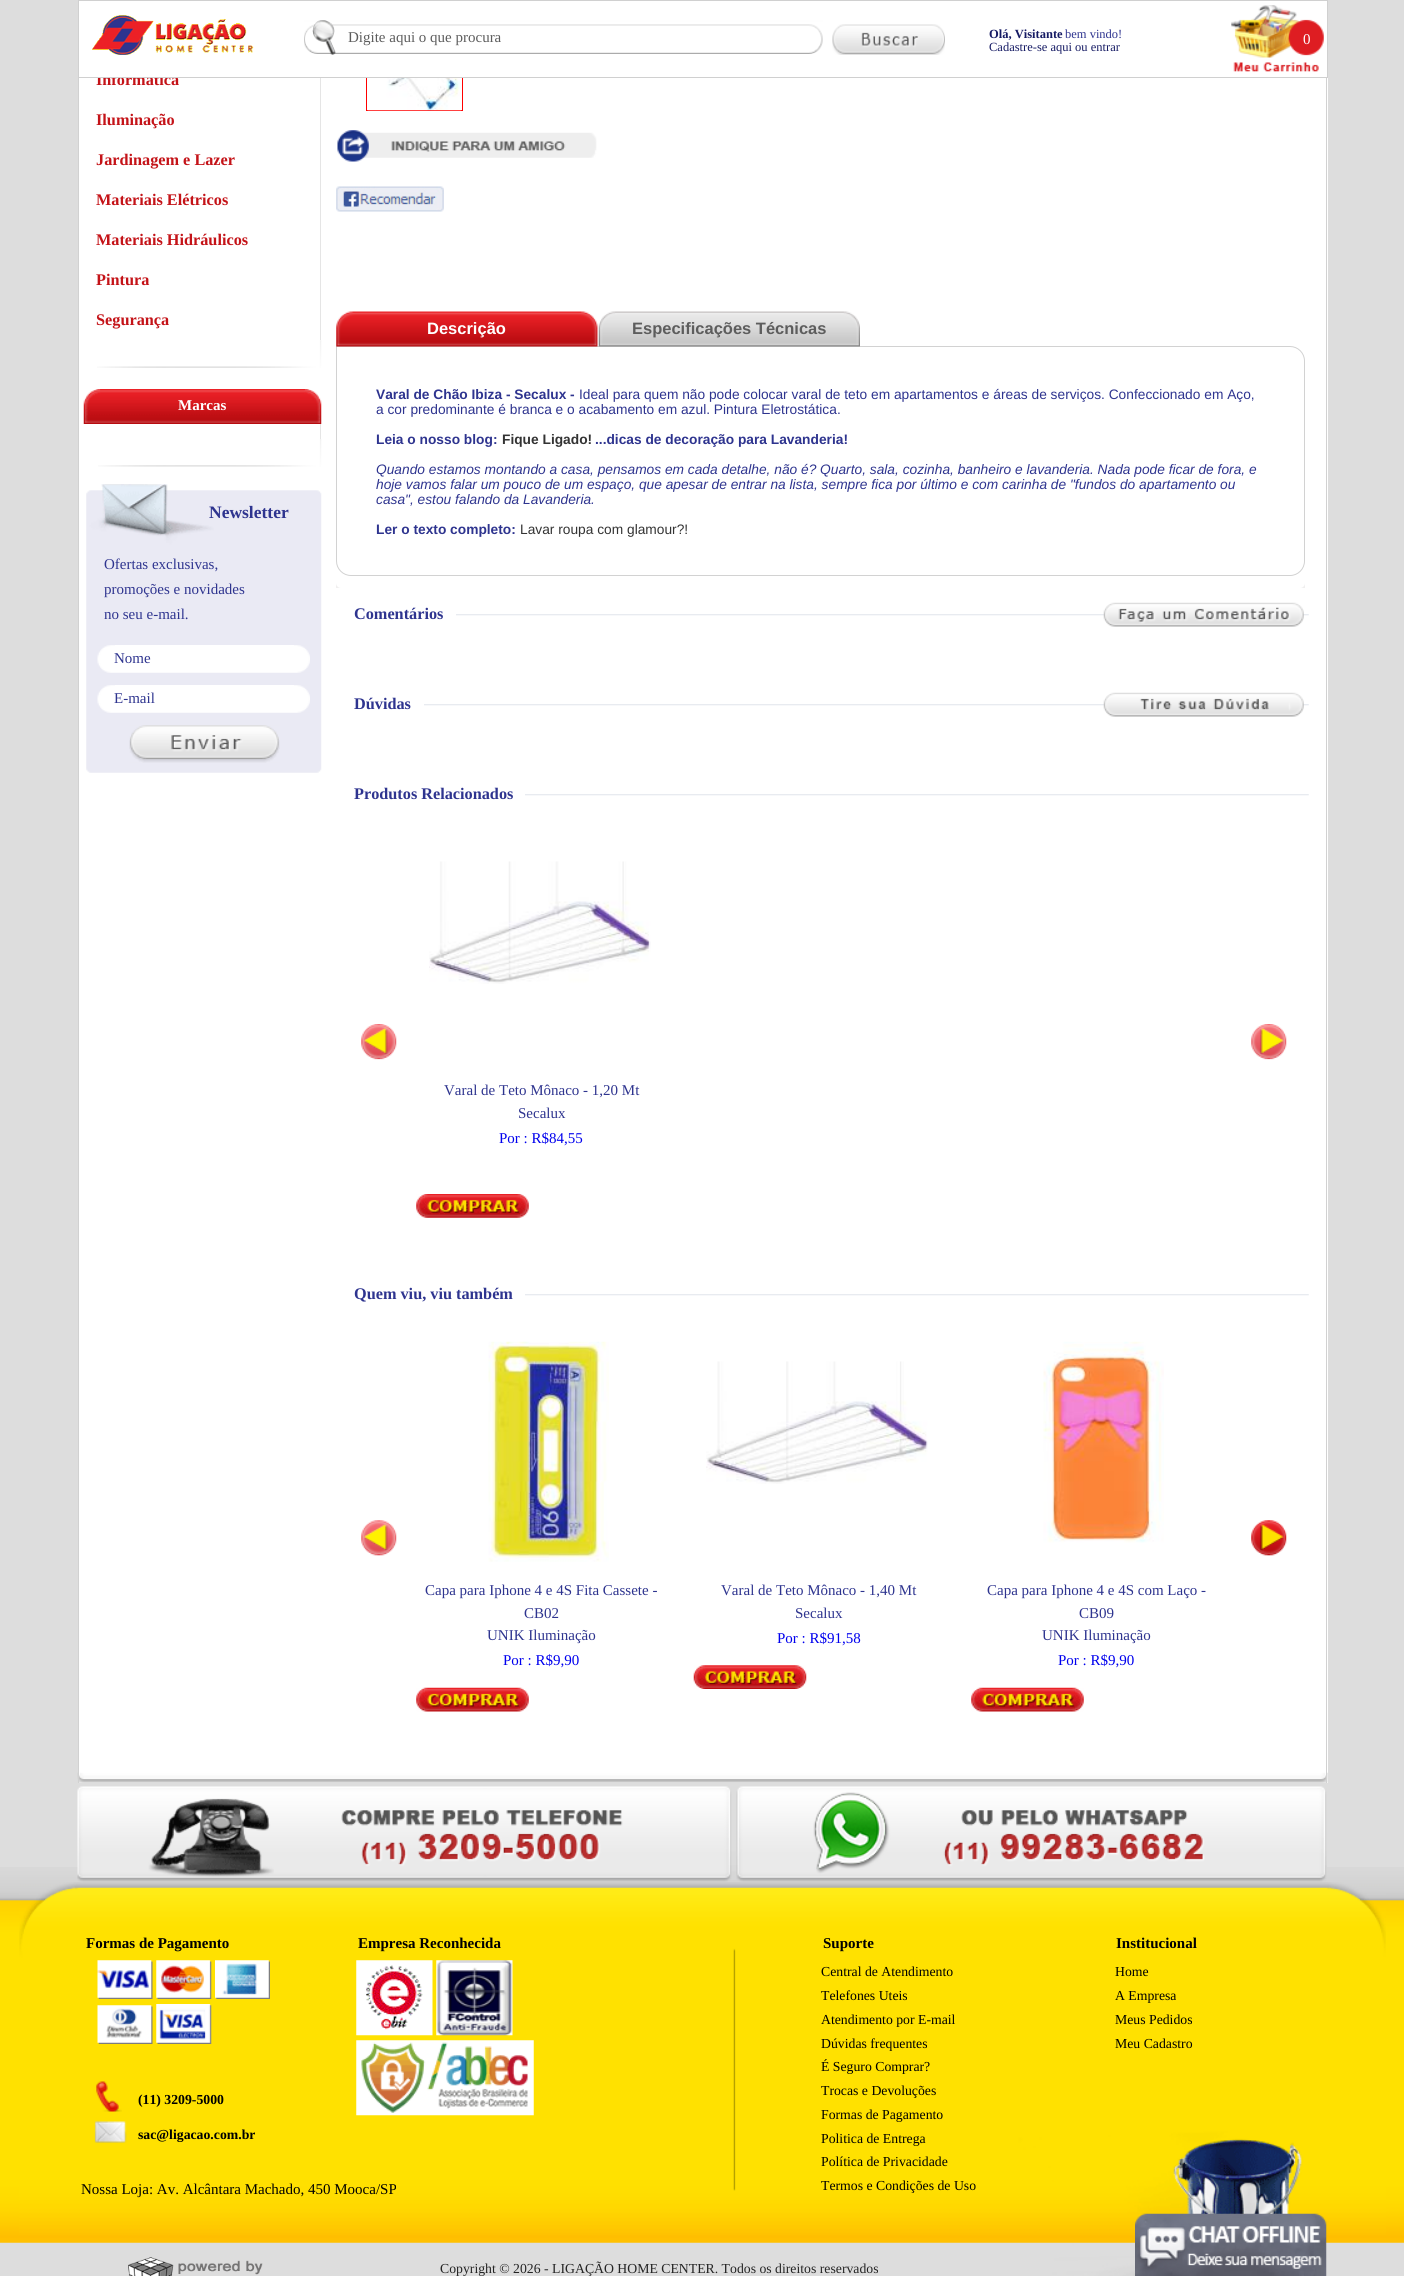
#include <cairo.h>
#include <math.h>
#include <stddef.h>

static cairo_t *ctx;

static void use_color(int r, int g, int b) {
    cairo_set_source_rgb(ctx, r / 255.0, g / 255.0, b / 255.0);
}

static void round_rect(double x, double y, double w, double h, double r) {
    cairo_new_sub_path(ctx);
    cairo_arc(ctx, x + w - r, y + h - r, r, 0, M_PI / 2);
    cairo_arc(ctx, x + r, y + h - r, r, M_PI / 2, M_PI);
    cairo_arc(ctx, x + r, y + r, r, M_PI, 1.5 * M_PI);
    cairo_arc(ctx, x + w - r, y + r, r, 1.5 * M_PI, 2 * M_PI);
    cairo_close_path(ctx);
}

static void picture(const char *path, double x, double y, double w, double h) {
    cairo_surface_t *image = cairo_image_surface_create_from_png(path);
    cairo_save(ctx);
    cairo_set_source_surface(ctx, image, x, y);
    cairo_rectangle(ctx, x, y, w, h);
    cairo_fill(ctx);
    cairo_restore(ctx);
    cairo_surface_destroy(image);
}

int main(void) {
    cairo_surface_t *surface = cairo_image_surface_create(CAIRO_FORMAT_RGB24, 1404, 2276);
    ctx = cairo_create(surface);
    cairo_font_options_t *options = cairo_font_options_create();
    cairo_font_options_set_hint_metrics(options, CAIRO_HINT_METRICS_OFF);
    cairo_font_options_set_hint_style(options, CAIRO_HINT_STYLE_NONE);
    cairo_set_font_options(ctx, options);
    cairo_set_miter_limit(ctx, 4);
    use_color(221, 221, 221);
    cairo_paint(ctx);
    picture("img1.png", 0, 1867, 1404, 376);
    picture("img2.png", 19, 1882, 1367, 394);
    use_color(255, 255, 255);
    cairo_rectangle(ctx, 79, 78, 1249, 1705);
    cairo_fill(ctx);
    cairo_select_font_face(ctx, "Liberation Serif", CAIRO_FONT_SLANT_NORMAL, CAIRO_FONT_WEIGHT_BOLD);
    cairo_set_font_size(ctx, 16.25);
    use_color(196, 19, 24);
    cairo_move_to(ctx, 96, 85);
    cairo_show_text(ctx, "Informática");
    cairo_rectangle(ctx, 366.5, 15.5, 96, 95);
    use_color(255, 0, 0);
    cairo_set_line_width(ctx, 1);
    cairo_stroke(ctx);
    use_color(255, 255, 255);
    cairo_rectangle(ctx, 78.5, 0.5, 1249, 77);
    cairo_fill_preserve(ctx);
    use_color(208, 208, 208);
    cairo_stroke(ctx);
    picture("img3.png", 92, 15, 162, 40);
    picture("img4.png", 304, 20, 519, 35);
    cairo_select_font_face(ctx, "Liberation Serif", CAIRO_FONT_SLANT_NORMAL, CAIRO_FONT_WEIGHT_NORMAL);
    cairo_set_font_size(ctx, 15);
    use_color(93, 93, 93);
    cairo_move_to(ctx, 348, 42);
    cairo_show_text(ctx, "Digite aqui o que procura");
    picture("img5.png", 832, 24, 113, 31);
    cairo_select_font_face(ctx, "Liberation Serif", CAIRO_FONT_SLANT_NORMAL, CAIRO_FONT_WEIGHT_BOLD);
    cairo_set_font_size(ctx, 12.5);
    use_color(22, 27, 100);
    cairo_move_to(ctx, 989, 38);
    cairo_show_text(ctx, "Olá, Visitante");
    cairo_select_font_face(ctx, "Liberation Serif", CAIRO_FONT_SLANT_NORMAL, CAIRO_FONT_WEIGHT_NORMAL);
    use_color(46, 52, 143);
    cairo_move_to(ctx, 1065, 38);
    cairo_show_text(ctx, "bem vindo!");
    use_color(22, 27, 100);
    cairo_move_to(ctx, 989, 51);
    cairo_show_text(ctx, "Cadastre-se aqui ou entrar");
    picture("img6.png", 1231, 5, 93, 67);
    cairo_set_font_size(ctx, 15);
    use_color(255, 255, 255);
    cairo_move_to(ctx, 1303, 44);
    cairo_show_text(ctx, "0");
    picture("img7.png", 77, 1772, 1251, 11);
    use_color(209, 209, 209);
    cairo_rectangle(ctx, 1326, 78, 1, 1705);
    cairo_fill(ctx);
    cairo_rectangle(ctx, 78, 78, 1, 1705);
    cairo_fill(ctx);
    picture("img8.png", 97, 340, 225, 28);
    use_color(229, 229, 229);
    cairo_rectangle(ctx, 320, 78, 1, 262);
    cairo_fill(ctx);
    cairo_select_font_face(ctx, "Liberation Serif", CAIRO_FONT_SLANT_NORMAL, CAIRO_FONT_WEIGHT_BOLD);
    cairo_set_font_size(ctx, 16.25);
    use_color(196, 19, 24);
    cairo_move_to(ctx, 96, 125);
    cairo_show_text(ctx, "Iluminação");
    cairo_move_to(ctx, 96, 165);
    cairo_show_text(ctx, "Jardinagem e Lazer");
    cairo_move_to(ctx, 96, 205);
    cairo_show_text(ctx, "Materiais Elétricos");
    cairo_move_to(ctx, 96, 245);
    cairo_show_text(ctx, "Materiais Hidráulicos");
    cairo_move_to(ctx, 96, 285);
    cairo_show_text(ctx, "Pintura");
    cairo_move_to(ctx, 96, 325);
    cairo_show_text(ctx, "Segurança");
    picture("img9.png", 83, 389, 239, 35);
    cairo_set_font_size(ctx, 15);
    use_color(255, 255, 255);
    cairo_move_to(ctx, 178, 410);
    cairo_show_text(ctx, "Marcas");
    picture("img10.png", 98, 439, 224, 28);
    use_color(229, 229, 229);
    cairo_rectangle(ctx, 320, 424, 1, 15);
    cairo_fill(ctx);
    picture("img11.png", 86, 484, 236, 289);
    cairo_set_font_size(ctx, 17.5);
    use_color(46, 52, 143);
    cairo_move_to(ctx, 209, 518);
    cairo_show_text(ctx, "Newsletter");
    cairo_select_font_face(ctx, "Liberation Serif", CAIRO_FONT_SLANT_NORMAL, CAIRO_FONT_WEIGHT_NORMAL);
    cairo_set_font_size(ctx, 15);
    cairo_move_to(ctx, 104, 569);
    cairo_show_text(ctx, "Ofertas exclusivas,");
    cairo_move_to(ctx, 104, 594);
    cairo_show_text(ctx, "promoções e novidades");
    cairo_move_to(ctx, 104, 619);
    cairo_show_text(ctx, "no seu e-mail.");
    picture("img12.png", 97, 645, 213, 28);
    use_color(255, 255, 255);
    cairo_rectangle(ctx, 115, 645, 179, 1);
    cairo_fill(ctx);
    use_color(46, 52, 143);
    cairo_move_to(ctx, 114, 663);
    cairo_show_text(ctx, "Nome");
    picture("img12.png", 97, 685, 213, 28);
    use_color(255, 255, 255);
    cairo_rectangle(ctx, 115, 685, 179, 1);
    cairo_fill(ctx);
    use_color(46, 52, 143);
    cairo_move_to(ctx, 114, 703);
    cairo_show_text(ctx, "E-mail");
    picture("img13.png", 129, 725, 151, 38);
    picture("img14.png", 367, 78, 95, 33);
    picture("img15.png", 337, 130, 260, 32);
    picture("img16.png", 336, 186, 108, 26);
    use_color(240, 239, 239);
    cairo_rectangle(ctx, 336, 583, 969, 5);
    cairo_fill(ctx);
    use_color(255, 255, 255);
    round_rect(336, 311, 969, 277, 5);
    cairo_fill(ctx);
    cairo_new_path(ctx);
    cairo_move_to(ctx, 336.5, 346.5);
    cairo_line_to(ctx, 1290, 346.5);
    cairo_curve_to(ctx, 1298, 346.5, 1304.5, 353, 1304.5, 361);
    cairo_line_to(ctx, 1304.5, 561);
    cairo_curve_to(ctx, 1304.5, 569, 1298, 575.5, 1290, 575.5);
    cairo_line_to(ctx, 351, 575.5);
    cairo_curve_to(ctx, 343, 575.5, 336.5, 569, 336.5, 561);
    cairo_close_path(ctx);
    use_color(210, 210, 210);
    cairo_stroke(ctx);
    picture("img17.png", 336, 311, 262, 36);
    cairo_select_font_face(ctx, "Liberation Sans", CAIRO_FONT_SLANT_NORMAL, CAIRO_FONT_WEIGHT_BOLD);
    cairo_set_font_size(ctx, 16.5);
    use_color(255, 255, 255);
    cairo_move_to(ctx, 427, 334);
    cairo_show_text(ctx, "Descrição");
    picture("img18.png", 598, 311, 262, 36);
    use_color(93, 93, 93);
    cairo_move_to(ctx, 632, 334);
    cairo_show_text(ctx, "Especificações Técnicas");
    cairo_set_font_size(ctx, 13.75);
    use_color(46, 52, 143);
    cairo_move_to(ctx, 376, 399);
    cairo_show_text(ctx, "Varal de Chão Ibiza - Secalux -");
    cairo_select_font_face(ctx, "Liberation Sans", CAIRO_FONT_SLANT_NORMAL, CAIRO_FONT_WEIGHT_NORMAL);
    cairo_move_to(ctx, 579, 399);
    cairo_show_text(ctx, "Ideal para quem não pode colocar varal de teto em apartamentos e áreas de serviços. Confeccionado em Aço,");
    cairo_move_to(ctx, 376, 414);
    cairo_show_text(ctx, "a cor predominante é branca e o acabamento em azul. Pintura Eletrostática.");
    cairo_select_font_face(ctx, "Liberation Sans", CAIRO_FONT_SLANT_NORMAL, CAIRO_FONT_WEIGHT_BOLD);
    cairo_move_to(ctx, 376, 444);
    cairo_show_text(ctx, "Leia o nosso blog:");
    use_color(51, 51, 51);
    cairo_move_to(ctx, 502, 444);
    cairo_show_text(ctx, "Fique Ligado!");
    use_color(46, 52, 143);
    cairo_move_to(ctx, 595, 444);
    cairo_show_text(ctx, "...dicas de decoração para Lavanderia!");
    cairo_select_font_face(ctx, "Liberation Sans", CAIRO_FONT_SLANT_ITALIC, CAIRO_FONT_WEIGHT_NORMAL);
    cairo_move_to(ctx, 376, 474);
    cairo_show_text(ctx, "Quando estamos montando a casa, pensamos em cada detalhe, não é? Quarto, sala, cozinha, banheiro e lavanderia. Nada pode ficar de fora, e");
    cairo_move_to(ctx, 376, 489);
    cairo_show_text(ctx, "hoje vamos falar um pouco de um espaço, que apesar de entrar na lista, sempre fica por último e com carinha de \"fundos do apartamento ou");
    cairo_move_to(ctx, 376, 504);
    cairo_show_text(ctx, "casa\", estou falando da Lavanderia.");
    cairo_select_font_face(ctx, "Liberation Sans", CAIRO_FONT_SLANT_NORMAL, CAIRO_FONT_WEIGHT_BOLD);
    cairo_move_to(ctx, 376, 534);
    cairo_show_text(ctx, "Ler o texto completo:");
    cairo_select_font_face(ctx, "Liberation Sans", CAIRO_FONT_SLANT_NORMAL, CAIRO_FONT_WEIGHT_NORMAL);
    use_color(51, 51, 51);
    cairo_move_to(ctx, 520, 534);
    cairo_show_text(ctx, "Lavar roupa com glamour?!");
    picture("img19.png", 456, 614, 853, 2);
    cairo_select_font_face(ctx, "Liberation Serif", CAIRO_FONT_SLANT_NORMAL, CAIRO_FONT_WEIGHT_BOLD);
    cairo_set_font_size(ctx, 16.25);
    use_color(46, 52, 143);
    cairo_move_to(ctx, 354, 619);
    cairo_show_text(ctx, "Comentários");
    picture("img20.png", 1103, 602, 201, 25);
    picture("img21.png", 424, 704, 885, 2);
    cairo_move_to(ctx, 354, 709);
    cairo_show_text(ctx, "Dúvidas");
    picture("img22.png", 1103, 692, 201, 25);
    picture("img23.png", 525, 794, 784, 2);
    cairo_move_to(ctx, 354, 799);
    cairo_show_text(ctx, "Produtos Relacionados");
    picture("img24.png", 361, 1024, 36, 36);
    picture("img25.png", 1251, 1024, 36, 36);
    picture("img26.png", 429, 861, 222, 123);
    cairo_select_font_face(ctx, "Liberation Serif", CAIRO_FONT_SLANT_NORMAL, CAIRO_FONT_WEIGHT_NORMAL);
    cairo_set_font_size(ctx, 15);
    cairo_move_to(ctx, 444, 1095);
    cairo_show_text(ctx, "Varal de Teto Mônaco - 1,20 Mt");
    cairo_move_to(ctx, 518, 1118);
    cairo_show_text(ctx, "Secalux");
    use_color(0, 0, 238);
    cairo_move_to(ctx, 499, 1143);
    cairo_show_text(ctx, "Por : R$84,55");
    picture("img27.png", 416, 1194, 113, 24);
    picture("img23.png", 525, 1294, 784, 2);
    cairo_select_font_face(ctx, "Liberation Serif", CAIRO_FONT_SLANT_NORMAL, CAIRO_FONT_WEIGHT_BOLD);
    cairo_set_font_size(ctx, 16.25);
    use_color(46, 52, 143);
    cairo_move_to(ctx, 354, 1299);
    cairo_show_text(ctx, "Quem viu, viu também");
    picture("img28.png", 361, 1520, 36, 36);
    picture("img29.png", 1251, 1520, 36, 36);
    picture("img30.png", 488, 1341, 121, 221);
    cairo_select_font_face(ctx, "Liberation Serif", CAIRO_FONT_SLANT_NORMAL, CAIRO_FONT_WEIGHT_NORMAL);
    cairo_set_font_size(ctx, 15);
    cairo_move_to(ctx, 425, 1595);
    cairo_show_text(ctx, "Capa para Iphone 4 e 4S Fita Cassete -");
    cairo_move_to(ctx, 524, 1618);
    cairo_show_text(ctx, "CB02");
    cairo_move_to(ctx, 487, 1640);
    cairo_show_text(ctx, "UNIK Iluminação");
    use_color(0, 0, 238);
    cairo_move_to(ctx, 503, 1665);
    cairo_show_text(ctx, "Por : R$9,90");
    picture("img31.png", 416, 1687, 113, 25);
    picture("img32.png", 706, 1361, 222, 123);
    use_color(46, 52, 143);
    cairo_move_to(ctx, 721, 1595);
    cairo_show_text(ctx, "Varal de Teto Mônaco - 1,40 Mt");
    cairo_move_to(ctx, 795, 1618);
    cairo_show_text(ctx, "Secalux");
    use_color(0, 0, 238);
    cairo_move_to(ctx, 777, 1643);
    cairo_show_text(ctx, "Por : R$91,58");
    picture("img33.png", 693, 1665, 114, 24);
    picture("img34.png", 1043, 1341, 121, 202);
    use_color(46, 52, 143);
    cairo_move_to(ctx, 987, 1595);
    cairo_show_text(ctx, "Capa para Iphone 4 e 4S com Laço -");
    cairo_move_to(ctx, 1079, 1618);
    cairo_show_text(ctx, "CB09");
    cairo_move_to(ctx, 1042, 1640);
    cairo_show_text(ctx, "UNIK Iluminação");
    use_color(0, 0, 238);
    cairo_move_to(ctx, 1058, 1665);
    cairo_show_text(ctx, "Por : R$9,90");
    picture("img31.png", 971, 1687, 113, 25);
    picture("img35.png", 77, 1786, 1250, 96);
    cairo_select_font_face(ctx, "Liberation Serif", CAIRO_FONT_SLANT_NORMAL, CAIRO_FONT_WEIGHT_BOLD);
    use_color(0, 0, 0);
    cairo_move_to(ctx, 86, 1948);
    cairo_show_text(ctx, "Formas de Pagamento");
    picture("img36.png", 97, 1960, 56, 39);
    picture("img37.png", 156, 1960, 56, 39);
    picture("img38.png", 215, 1960, 55, 39);
    picture("img39.png", 97, 2005, 56, 39);
    picture("img40.png", 156, 2004, 56, 40);
    cairo_move_to(ctx, 358, 1948);
    cairo_show_text(ctx, "Empresa Reconhecida");
    picture("img41.png", 356, 1960, 77, 76);
    picture("img42.png", 436, 1960, 77, 76);
    picture("img43.png", 356, 2040, 178, 76);
    cairo_move_to(ctx, 823, 1948);
    cairo_show_text(ctx, "Suporte");
    cairo_select_font_face(ctx, "Liberation Serif", CAIRO_FONT_SLANT_NORMAL, CAIRO_FONT_WEIGHT_NORMAL);
    cairo_set_font_size(ctx, 13.75);
    cairo_move_to(ctx, 821, 1976);
    cairo_show_text(ctx, "Central de Atendimento");
    cairo_move_to(ctx, 821, 2000);
    cairo_show_text(ctx, "Telefones Uteis");
    cairo_move_to(ctx, 821, 2024);
    cairo_show_text(ctx, "Atendimento por E-mail");
    cairo_move_to(ctx, 821, 2048);
    cairo_show_text(ctx, "Dúvidas frequentes");
    cairo_move_to(ctx, 821, 2071);
    cairo_show_text(ctx, "É Seguro Comprar?");
    cairo_move_to(ctx, 821, 2095);
    cairo_show_text(ctx, "Trocas e Devoluções");
    cairo_move_to(ctx, 821, 2119);
    cairo_show_text(ctx, "Formas de Pagamento");
    cairo_move_to(ctx, 821, 2143);
    cairo_show_text(ctx, "Politica de Entrega");
    cairo_move_to(ctx, 821, 2166);
    cairo_show_text(ctx, "Política de Privacidade");
    cairo_move_to(ctx, 821, 2190);
    cairo_show_text(ctx, "Termos e Condições de Uso");
    cairo_select_font_face(ctx, "Liberation Serif", CAIRO_FONT_SLANT_NORMAL, CAIRO_FONT_WEIGHT_BOLD);
    cairo_set_font_size(ctx, 15);
    cairo_move_to(ctx, 1116, 1948);
    cairo_show_text(ctx, "Institucional");
    cairo_select_font_face(ctx, "Liberation Serif", CAIRO_FONT_SLANT_NORMAL, CAIRO_FONT_WEIGHT_NORMAL);
    cairo_set_font_size(ctx, 13.75);
    cairo_move_to(ctx, 1115, 1976);
    cairo_show_text(ctx, "Home");
    cairo_move_to(ctx, 1115, 2000);
    cairo_show_text(ctx, "A Empresa");
    cairo_move_to(ctx, 1115, 2024);
    cairo_show_text(ctx, "Meus Pedidos");
    cairo_move_to(ctx, 1115, 2048);
    cairo_show_text(ctx, "Meu Cadastro");
    picture("img44.png", 95, 2081, 27, 31);
    cairo_select_font_face(ctx, "Liberation Serif", CAIRO_FONT_SLANT_NORMAL, CAIRO_FONT_WEIGHT_BOLD);
    cairo_move_to(ctx, 138, 2104);
    cairo_show_text(ctx, "(11) 3209-5000");
    picture("img45.png", 94, 2121, 33, 22);
    cairo_move_to(ctx, 138, 2139);
    cairo_show_text(ctx, "sac@ligacao.com.br");
    cairo_select_font_face(ctx, "Liberation Serif", CAIRO_FONT_SLANT_NORMAL, CAIRO_FONT_WEIGHT_NORMAL);
    cairo_set_font_size(ctx, 15);
    cairo_move_to(ctx, 81, 2194);
    cairo_show_text(ctx, "Nossa Loja: Av. Alcântara Machado, 450 Mooca/SP");
    picture("img46.png", 128, 2257, 135, 19);
    cairo_set_font_size(ctx, 13.75);
    use_color(36, 36, 36);
    cairo_move_to(ctx, 440, 2273);
    cairo_show_text(ctx, "Copyright © 2026 - LIGAÇÃO HOME CENTER. Todos os direitos reservados");
    picture("img47.png", 1135, 2213, 192, 63);
    cairo_surface_write_to_png(surface, "result.png");
    cairo_font_options_destroy(options);
    cairo_destroy(ctx);
    cairo_surface_destroy(surface);
    return 0;
}
